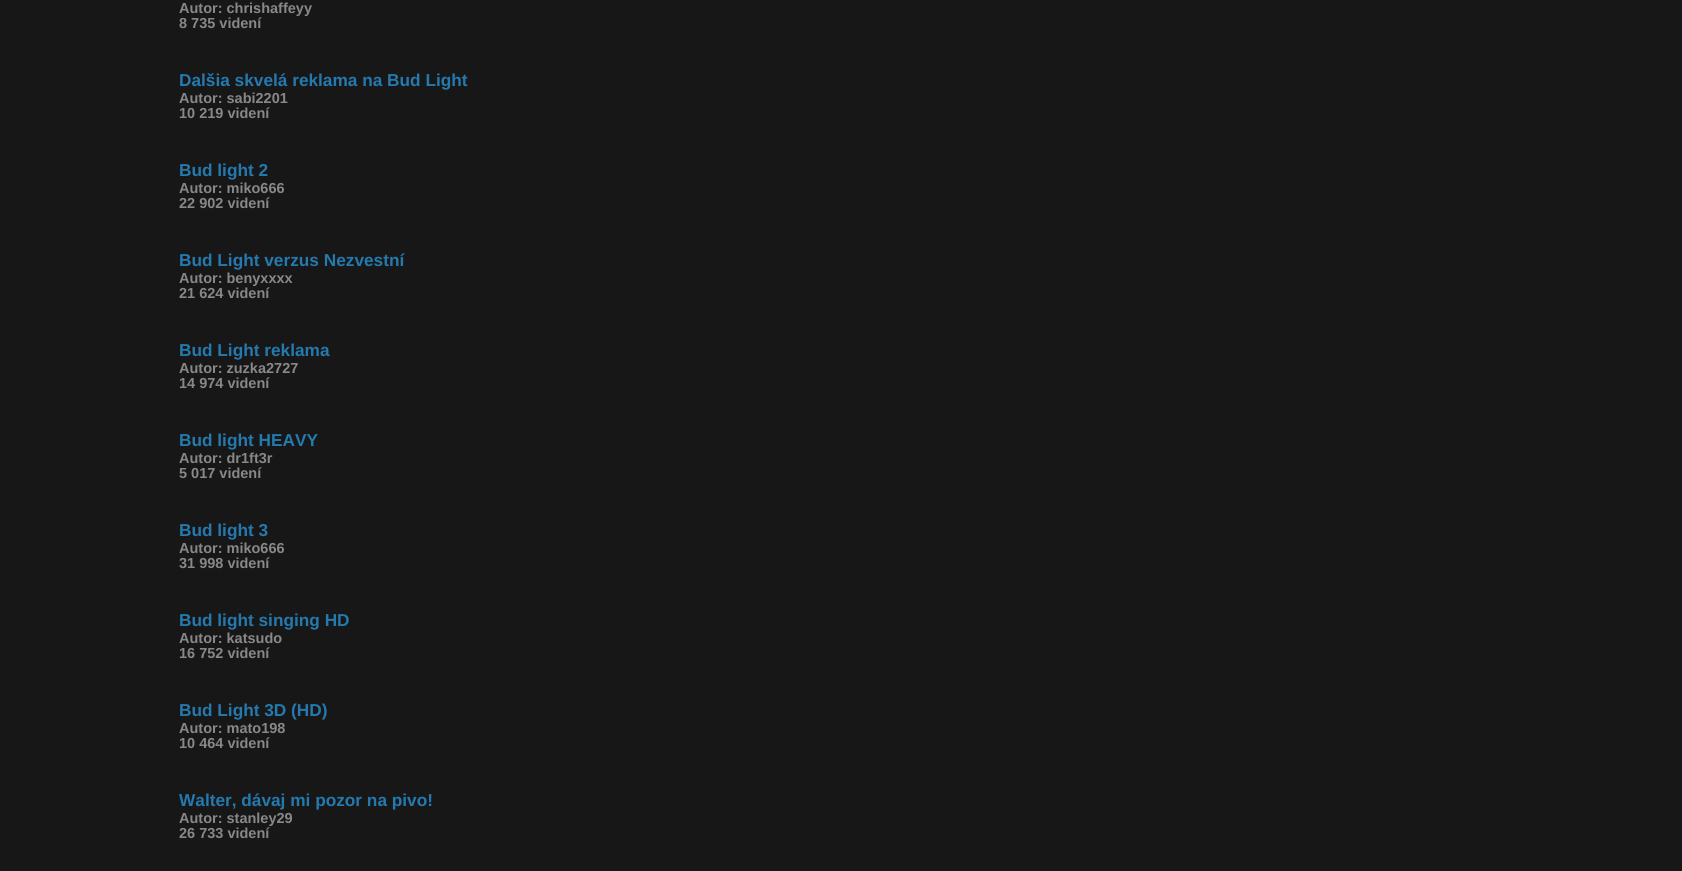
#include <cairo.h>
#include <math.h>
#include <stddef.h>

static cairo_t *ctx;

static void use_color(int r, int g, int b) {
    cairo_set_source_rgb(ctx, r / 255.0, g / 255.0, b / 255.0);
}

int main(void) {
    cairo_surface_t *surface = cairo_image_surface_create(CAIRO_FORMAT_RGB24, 1682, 871);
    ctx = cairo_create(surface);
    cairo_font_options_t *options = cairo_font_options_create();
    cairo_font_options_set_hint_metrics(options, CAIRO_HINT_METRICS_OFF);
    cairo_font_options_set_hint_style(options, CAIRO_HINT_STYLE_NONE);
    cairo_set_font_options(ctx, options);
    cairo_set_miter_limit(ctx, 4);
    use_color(23, 23, 23);
    cairo_paint(ctx);
    cairo_select_font_face(ctx, "Liberation Sans", CAIRO_FONT_SLANT_NORMAL, CAIRO_FONT_WEIGHT_BOLD);
    cairo_set_font_size(ctx, 14.5);
    use_color(136, 136, 136);
    cairo_move_to(ctx, 179, 13);
    cairo_show_text(ctx, "Autor: chrishaffeyy");
    cairo_move_to(ctx, 179, 28);
    cairo_show_text(ctx, "8 735 videní");
    cairo_set_font_size(ctx, 17.25);
    use_color(36, 121, 174);
    cairo_move_to(ctx, 179, 86);
    cairo_show_text(ctx, "Dalšia skvelá reklama na Bud Light");
    cairo_set_font_size(ctx, 14.5);
    use_color(136, 136, 136);
    cairo_move_to(ctx, 179, 103);
    cairo_show_text(ctx, "Autor: sabi2201");
    cairo_move_to(ctx, 179, 118);
    cairo_show_text(ctx, "10 219 videní");
    cairo_set_font_size(ctx, 17.25);
    use_color(36, 121, 174);
    cairo_move_to(ctx, 179, 176);
    cairo_show_text(ctx, "Bud light 2");
    cairo_set_font_size(ctx, 14.5);
    use_color(136, 136, 136);
    cairo_move_to(ctx, 179, 193);
    cairo_show_text(ctx, "Autor: miko666");
    cairo_move_to(ctx, 179, 208);
    cairo_show_text(ctx, "22 902 videní");
    cairo_set_font_size(ctx, 17.25);
    use_color(36, 121, 174);
    cairo_move_to(ctx, 179, 266);
    cairo_show_text(ctx, "Bud Light verzus Nezvestní");
    cairo_set_font_size(ctx, 14.5);
    use_color(136, 136, 136);
    cairo_move_to(ctx, 179, 283);
    cairo_show_text(ctx, "Autor: benyxxxx");
    cairo_move_to(ctx, 179, 298);
    cairo_show_text(ctx, "21 624 videní");
    cairo_set_font_size(ctx, 17.25);
    use_color(36, 121, 174);
    cairo_move_to(ctx, 179, 356);
    cairo_show_text(ctx, "Bud Light reklama");
    cairo_set_font_size(ctx, 14.5);
    use_color(136, 136, 136);
    cairo_move_to(ctx, 179, 373);
    cairo_show_text(ctx, "Autor: zuzka2727");
    cairo_move_to(ctx, 179, 388);
    cairo_show_text(ctx, "14 974 videní");
    cairo_set_font_size(ctx, 17.25);
    use_color(36, 121, 174);
    cairo_move_to(ctx, 179, 446);
    cairo_show_text(ctx, "Bud light HEAVY");
    cairo_set_font_size(ctx, 14.5);
    use_color(136, 136, 136);
    cairo_move_to(ctx, 179, 463);
    cairo_show_text(ctx, "Autor: dr1ft3r");
    cairo_move_to(ctx, 179, 478);
    cairo_show_text(ctx, "5 017 videní");
    cairo_set_font_size(ctx, 17.25);
    use_color(36, 121, 174);
    cairo_move_to(ctx, 179, 536);
    cairo_show_text(ctx, "Bud light 3");
    cairo_set_font_size(ctx, 14.5);
    use_color(136, 136, 136);
    cairo_move_to(ctx, 179, 553);
    cairo_show_text(ctx, "Autor: miko666");
    cairo_move_to(ctx, 179, 568);
    cairo_show_text(ctx, "31 998 videní");
    cairo_set_font_size(ctx, 17.25);
    use_color(36, 121, 174);
    cairo_move_to(ctx, 179, 626);
    cairo_show_text(ctx, "Bud light singing HD");
    cairo_set_font_size(ctx, 14.5);
    use_color(136, 136, 136);
    cairo_move_to(ctx, 179, 643);
    cairo_show_text(ctx, "Autor: katsudo");
    cairo_move_to(ctx, 179, 658);
    cairo_show_text(ctx, "16 752 videní");
    cairo_set_font_size(ctx, 17.25);
    use_color(36, 121, 174);
    cairo_move_to(ctx, 179, 716);
    cairo_show_text(ctx, "Bud Light 3D (HD)");
    cairo_set_font_size(ctx, 14.5);
    use_color(136, 136, 136);
    cairo_move_to(ctx, 179, 733);
    cairo_show_text(ctx, "Autor: mato198");
    cairo_move_to(ctx, 179, 748);
    cairo_show_text(ctx, "10 464 videní");
    cairo_set_font_size(ctx, 17.25);
    use_color(36, 121, 174);
    cairo_move_to(ctx, 179, 806);
    cairo_show_text(ctx, "Walter, dávaj mi pozor na pivo!");
    cairo_set_font_size(ctx, 14.5);
    use_color(136, 136, 136);
    cairo_move_to(ctx, 179, 823);
    cairo_show_text(ctx, "Autor: stanley29");
    cairo_move_to(ctx, 179, 838);
    cairo_show_text(ctx, "26 733 videní");
    cairo_surface_write_to_png(surface, "result.png");
    cairo_font_options_destroy(options);
    cairo_destroy(ctx);
    cairo_surface_destroy(surface);
    return 0;
}
